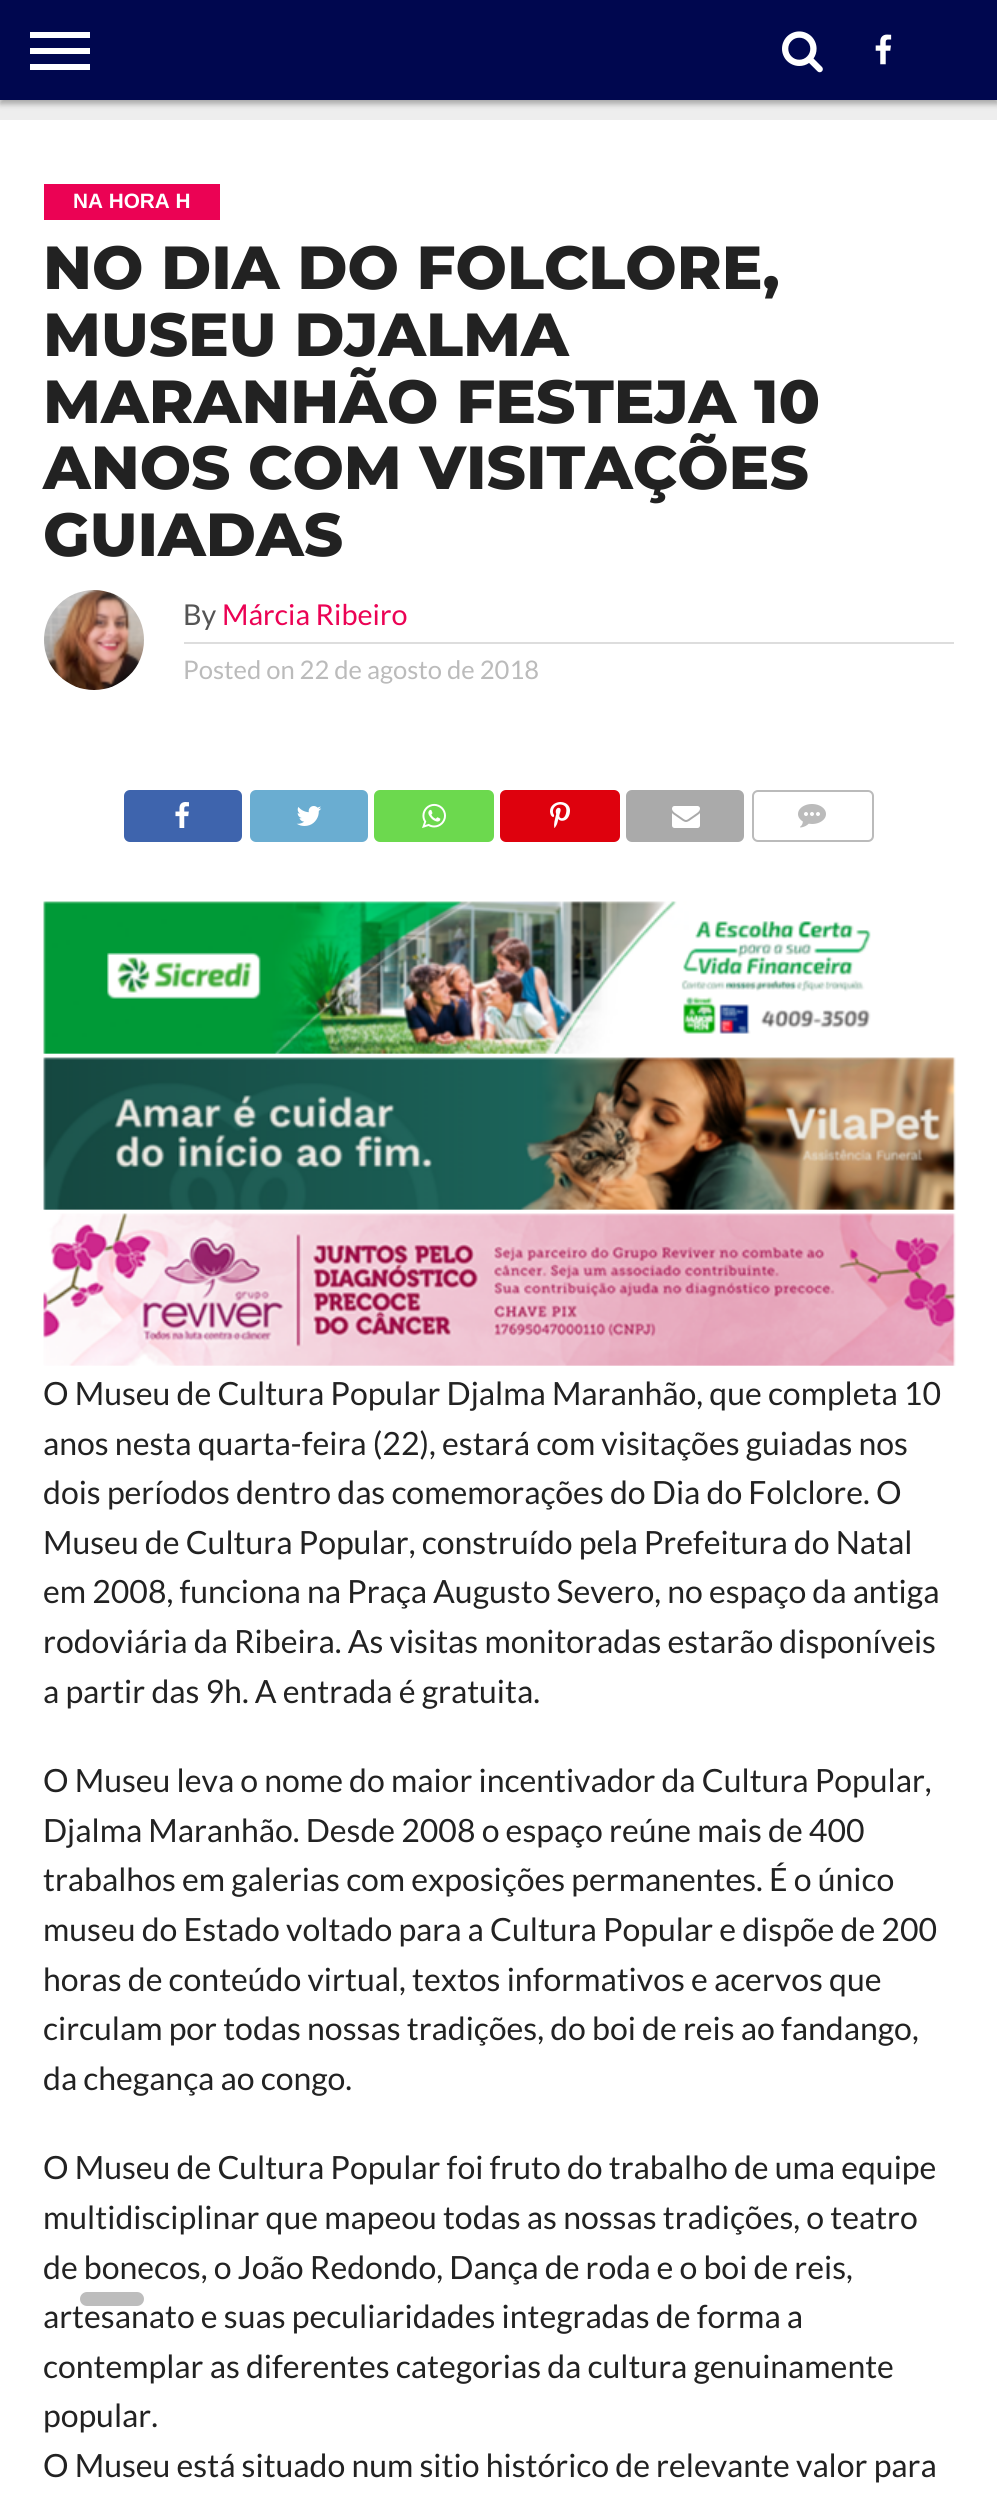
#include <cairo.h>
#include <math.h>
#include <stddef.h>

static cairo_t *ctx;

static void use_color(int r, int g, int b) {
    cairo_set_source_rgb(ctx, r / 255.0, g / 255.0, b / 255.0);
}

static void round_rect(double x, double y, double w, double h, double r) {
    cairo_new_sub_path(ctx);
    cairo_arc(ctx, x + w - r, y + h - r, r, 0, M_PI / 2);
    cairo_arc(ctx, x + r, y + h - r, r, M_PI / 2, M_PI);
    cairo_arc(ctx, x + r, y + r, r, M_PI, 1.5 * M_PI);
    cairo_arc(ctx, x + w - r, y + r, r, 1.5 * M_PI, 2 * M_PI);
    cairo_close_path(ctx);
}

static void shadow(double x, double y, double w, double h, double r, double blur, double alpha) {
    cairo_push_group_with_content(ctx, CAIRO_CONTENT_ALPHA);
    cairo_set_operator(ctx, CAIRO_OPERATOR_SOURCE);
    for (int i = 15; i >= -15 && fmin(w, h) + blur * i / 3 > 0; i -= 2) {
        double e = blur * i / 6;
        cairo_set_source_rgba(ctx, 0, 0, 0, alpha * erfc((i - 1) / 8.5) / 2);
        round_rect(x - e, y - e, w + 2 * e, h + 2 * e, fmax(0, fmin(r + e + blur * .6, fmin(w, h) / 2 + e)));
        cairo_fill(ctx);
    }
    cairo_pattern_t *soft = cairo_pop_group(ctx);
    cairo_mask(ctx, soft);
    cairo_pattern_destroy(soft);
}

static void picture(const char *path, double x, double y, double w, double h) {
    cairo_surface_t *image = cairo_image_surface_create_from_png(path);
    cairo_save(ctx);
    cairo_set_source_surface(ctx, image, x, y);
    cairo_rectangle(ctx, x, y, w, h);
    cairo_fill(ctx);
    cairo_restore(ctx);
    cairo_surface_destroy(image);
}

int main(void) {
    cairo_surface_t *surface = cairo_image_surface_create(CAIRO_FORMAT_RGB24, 997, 2499);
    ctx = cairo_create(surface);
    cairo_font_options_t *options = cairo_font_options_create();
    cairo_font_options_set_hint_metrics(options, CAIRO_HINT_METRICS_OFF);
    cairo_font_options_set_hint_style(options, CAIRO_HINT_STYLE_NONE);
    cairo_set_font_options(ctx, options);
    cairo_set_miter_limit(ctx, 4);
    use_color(238, 238, 238);
    cairo_paint(ctx);
    use_color(0, 0, 0);
    shadow(0, 4, 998, 100, 0, 3, 0.3);
    use_color(0, 7, 79);
    cairo_rectangle(ctx, 0, 0, 997, 100);
    cairo_fill(ctx);
    use_color(255, 255, 255);
    cairo_rectangle(ctx, 30, 32, 60, 6);
    cairo_fill(ctx);
    cairo_rectangle(ctx, 30, 48, 60, 6);
    cairo_fill(ctx);
    cairo_rectangle(ctx, 30, 64, 60, 6);
    cairo_fill(ctx);
    picture("img1.png", 782, 31, 41, 42);
    picture("img2.png", 875, 34, 17, 31);
    cairo_rectangle(ctx, 0, 120, 997, 2379);
    cairo_fill(ctx);
    use_color(235, 2, 84);
    cairo_rectangle(ctx, 44, 184, 176, 36);
    cairo_fill(ctx);
    cairo_select_font_face(ctx, "Liberation Sans", CAIRO_FONT_SLANT_NORMAL, CAIRO_FONT_WEIGHT_BOLD);
    cairo_set_font_size(ctx, 20.75);
    use_color(255, 255, 255);
    cairo_move_to(ctx, 73, 208);
    cairo_show_text(ctx, "NA HORA H");
    cairo_select_font_face(ctx, "Montserrat ExtraBold", CAIRO_FONT_SLANT_NORMAL, CAIRO_FONT_WEIGHT_NORMAL);
    cairo_set_font_size(ctx, 60.75);
    use_color(34, 34, 34);
    cairo_move_to(ctx, 43, 289);
    cairo_show_text(ctx, "NO DIA DO FOLCLORE,");
    cairo_move_to(ctx, 43, 356);
    cairo_show_text(ctx, "MUSEU DJALMA");
    cairo_move_to(ctx, 43, 423);
    cairo_show_text(ctx, "MARANHÃO FESTEJA 10");
    cairo_move_to(ctx, 43, 489);
    cairo_show_text(ctx, "ANOS COM VISITAÇÕES");
    cairo_move_to(ctx, 43, 556);
    cairo_show_text(ctx, "GUIADAS");
    picture("img3.png", 44, 590, 100, 100);
    use_color(221, 221, 221);
    cairo_rectangle(ctx, 184, 642, 770, 2);
    cairo_fill(ctx);
    cairo_select_font_face(ctx, "Lato", CAIRO_FONT_SLANT_NORMAL, CAIRO_FONT_WEIGHT_NORMAL);
    cairo_set_font_size(ctx, 28.75);
    use_color(85, 85, 85);
    cairo_move_to(ctx, 183, 625);
    cairo_show_text(ctx, "By");
    use_color(235, 2, 84);
    cairo_move_to(ctx, 222, 625);
    cairo_show_text(ctx, "Márcia Ribeiro");
    cairo_set_font_size(ctx, 25.6);
    use_color(187, 187, 187);
    cairo_move_to(ctx, 183, 679);
    cairo_show_text(ctx, "Posted on 22 de agosto de 2018");
    use_color(62, 100, 173);
    round_rect(124, 790, 118, 52, 6);
    cairo_fill(ctx);
    picture("img4.png", 175, 802, 14, 26);
    use_color(106, 173, 209);
    round_rect(250, 790, 118, 52, 6);
    cairo_fill(ctx);
    picture("img5.png", 296, 806, 26, 20);
    use_color(108, 217, 78);
    round_rect(374, 790, 120, 52, 6);
    cairo_fill(ctx);
    picture("img6.png", 422, 803, 24, 25);
    use_color(222, 1, 13);
    round_rect(500, 790, 120, 52, 6);
    cairo_fill(ctx);
    picture("img7.png", 550, 802, 20, 26);
    use_color(170, 170, 170);
    round_rect(626, 790, 118, 52, 6);
    cairo_fill(ctx);
    picture("img8.png", 672, 806, 28, 22);
    round_rect(753, 791, 120, 50, 5);
    use_color(187, 187, 187);
    cairo_stroke(ctx);
    picture("img9.png", 798, 804, 28, 24);
    picture("img10.png", 43, 901, 828, 153);
    picture("img11.png", 43, 1057, 913, 153);
    picture("img12.png", 43, 1213, 913, 153);
    cairo_set_font_size(ctx, 32);
    use_color(34, 34, 34);
    cairo_move_to(ctx, 43, 1405);
    cairo_show_text(ctx, "O Museu de Cultura Popular Djalma Maranhão, que completa 10");
    cairo_move_to(ctx, 43, 1455);
    cairo_show_text(ctx, "anos nesta quarta-feira (22), estará com visitações guiadas nos");
    cairo_move_to(ctx, 43, 1504);
    cairo_show_text(ctx, "dois períodos dentro das comemorações do Dia do Folclore. O");
    cairo_move_to(ctx, 43, 1554);
    cairo_show_text(ctx, "Museu de Cultura Popular, construído pela Prefeitura do Natal");
    cairo_move_to(ctx, 43, 1603);
    cairo_show_text(ctx, "em 2008, funciona na Praça Augusto Severo, no espaço da antiga");
    cairo_move_to(ctx, 43, 1653);
    cairo_show_text(ctx, "rodoviária da Ribeira. As visitas monitoradas estarão disponíveis");
    cairo_move_to(ctx, 43, 1703);
    cairo_show_text(ctx, "a partir das 9h. A entrada é gratuita.");
    cairo_move_to(ctx, 43, 1792);
    cairo_show_text(ctx, "O Museu leva o nome do maior incentivador da Cultura Popular,");
    cairo_move_to(ctx, 43, 1842);
    cairo_show_text(ctx, "Djalma Maranhão. Desde 2008 o espaço reúne mais de 400");
    cairo_move_to(ctx, 43, 1891);
    cairo_show_text(ctx, "trabalhos em galerias com exposições permanentes. É o único");
    cairo_move_to(ctx, 43, 1941);
    cairo_show_text(ctx, "museu do Estado voltado para a Cultura Popular e dispõe de 200");
    cairo_move_to(ctx, 43, 1991);
    cairo_show_text(ctx, "horas de conteúdo virtual, textos informativos e acervos que");
    cairo_move_to(ctx, 43, 2040);
    cairo_show_text(ctx, "circulam por todas nossas tradições, do boi de reis ao fandango,");
    cairo_move_to(ctx, 43, 2090);
    cairo_show_text(ctx, "da chegança ao congo.");
    cairo_move_to(ctx, 43, 2179);
    cairo_show_text(ctx, "O Museu de Cultura Popular foi fruto do trabalho de uma equipe");
    cairo_move_to(ctx, 43, 2229);
    cairo_show_text(ctx, "multidisciplinar que mapeou todas as nossas tradições, o teatro");
    cairo_move_to(ctx, 43, 2279);
    cairo_show_text(ctx, "de bonecos, o João Redondo, Dança de roda e o boi de reis,");
    cairo_move_to(ctx, 43, 2328);
    cairo_show_text(ctx, "artesanato e suas peculiaridades integradas de forma a");
    cairo_move_to(ctx, 43, 2378);
    cairo_show_text(ctx, "contemplar as diferentes categorias da cultura genuinamente");
    cairo_move_to(ctx, 43, 2427);
    cairo_show_text(ctx, "popular.");
    cairo_move_to(ctx, 43, 2477);
    cairo_show_text(ctx, "O Museu está situado num sitio histórico de relevante valor para");
    use_color(189, 189, 189);
    round_rect(80, 2292, 64, 14, 7);
    cairo_fill(ctx);
    cairo_surface_write_to_png(surface, "result.png");
    cairo_font_options_destroy(options);
    cairo_destroy(ctx);
    cairo_surface_destroy(surface);
    return 0;
}
